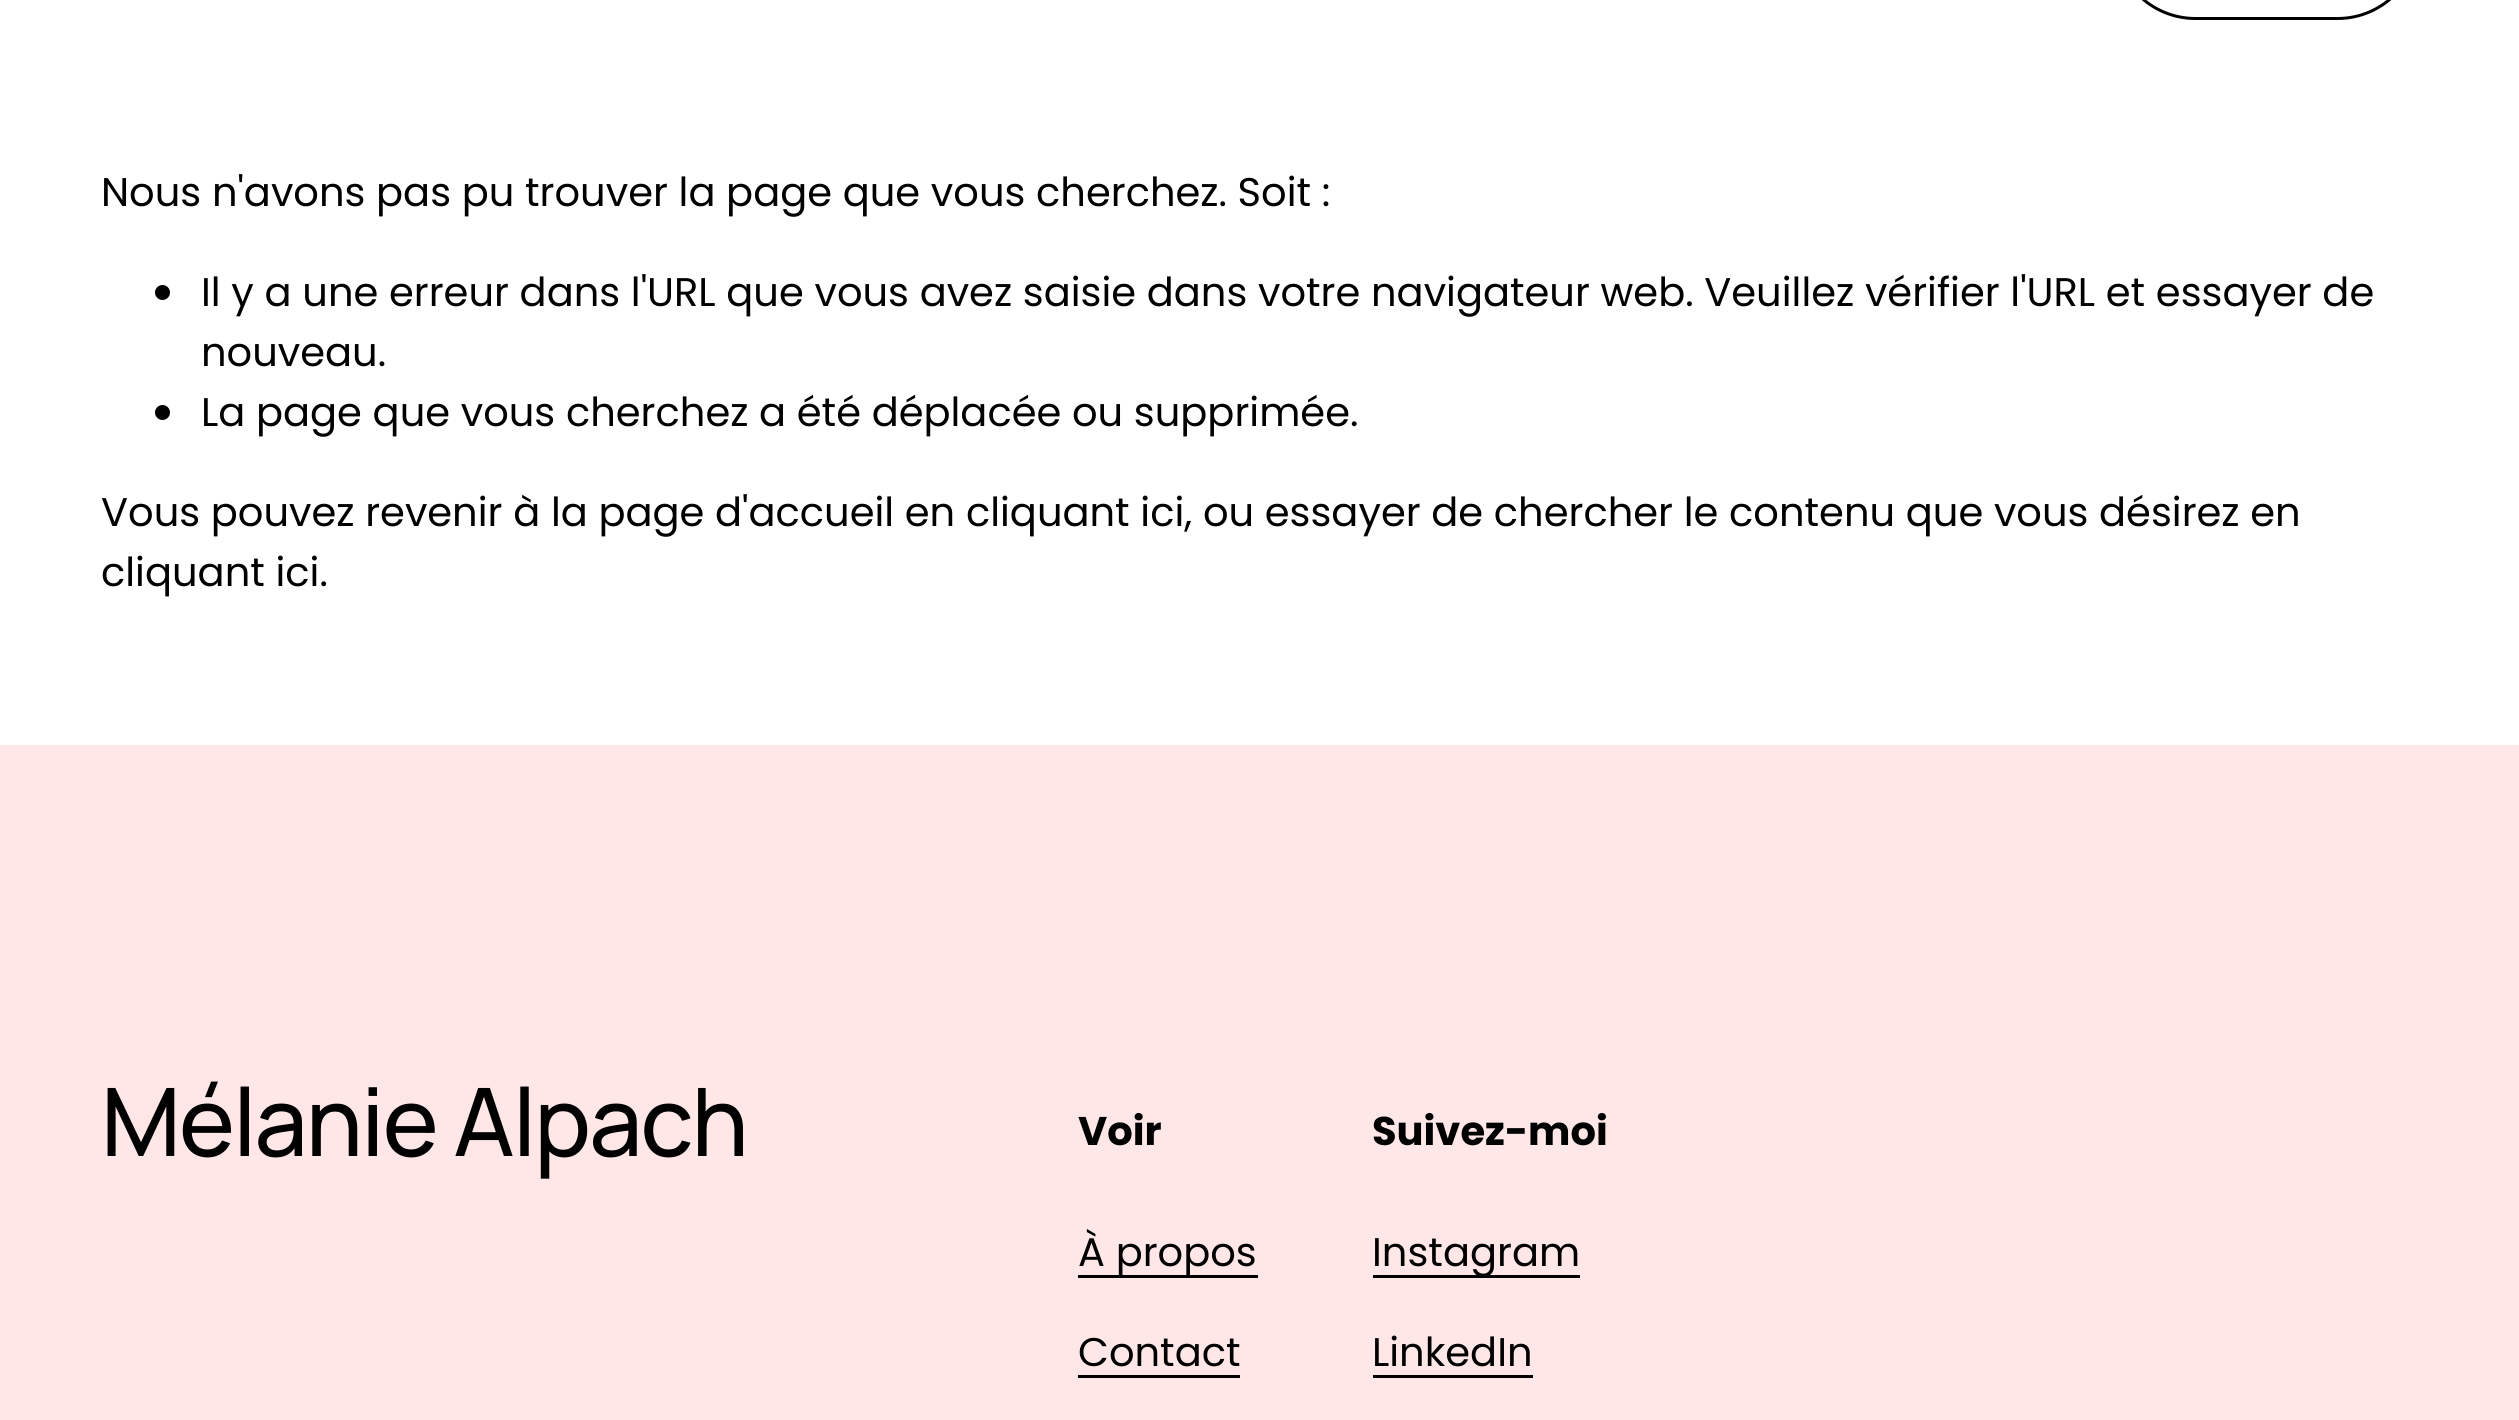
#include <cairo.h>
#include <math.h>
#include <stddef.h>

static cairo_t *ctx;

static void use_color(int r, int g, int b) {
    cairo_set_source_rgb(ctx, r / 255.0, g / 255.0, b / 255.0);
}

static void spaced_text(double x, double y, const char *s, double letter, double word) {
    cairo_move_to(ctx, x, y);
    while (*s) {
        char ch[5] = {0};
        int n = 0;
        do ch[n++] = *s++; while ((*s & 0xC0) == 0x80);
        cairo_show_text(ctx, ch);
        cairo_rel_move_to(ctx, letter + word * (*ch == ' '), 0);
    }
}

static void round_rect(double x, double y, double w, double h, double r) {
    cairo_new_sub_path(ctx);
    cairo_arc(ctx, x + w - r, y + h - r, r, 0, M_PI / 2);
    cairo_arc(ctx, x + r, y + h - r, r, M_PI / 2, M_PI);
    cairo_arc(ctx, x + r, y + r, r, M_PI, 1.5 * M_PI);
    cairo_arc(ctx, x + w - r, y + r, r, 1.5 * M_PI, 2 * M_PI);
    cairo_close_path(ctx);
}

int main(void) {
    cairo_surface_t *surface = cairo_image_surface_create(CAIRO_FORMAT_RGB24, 2519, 1420);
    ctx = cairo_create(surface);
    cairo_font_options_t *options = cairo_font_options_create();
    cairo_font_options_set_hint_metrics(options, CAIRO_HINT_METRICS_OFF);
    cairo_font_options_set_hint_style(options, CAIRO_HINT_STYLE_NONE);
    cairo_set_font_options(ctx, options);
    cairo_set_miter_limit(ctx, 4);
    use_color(255, 255, 255);
    cairo_paint(ctx);
    round_rect(2114.5, -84.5, 304, 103, 81);
    use_color(0, 0, 0);
    cairo_set_line_width(ctx, 3);
    cairo_stroke(ctx);
    cairo_select_font_face(ctx, "Poppins", CAIRO_FONT_SLANT_NORMAL, CAIRO_FONT_WEIGHT_NORMAL);
    cairo_set_font_size(ctx, 40);
    cairo_move_to(ctx, 101, 206);
    cairo_show_text(ctx, "Nous n'avons pas pu trouver la page que vous cherchez. Soit :");
    cairo_new_path(ctx);
    cairo_arc(ctx, 162.5, 292.5, 7.5, 0, 2 * M_PI);
    cairo_fill(ctx);
    cairo_move_to(ctx, 201, 306);
    cairo_show_text(ctx, "Il y a une erreur dans l'URL que vous avez saisie dans votre navigateur web. Veuillez vérifier l'URL et essayer de");
    cairo_move_to(ctx, 201, 366);
    cairo_show_text(ctx, "nouveau.");
    cairo_new_path(ctx);
    cairo_arc(ctx, 162.5, 412.5, 7.5, 0, 2 * M_PI);
    cairo_fill(ctx);
    cairo_move_to(ctx, 201, 426);
    cairo_show_text(ctx, "La page que vous cherchez a été déplacée ou supprimée.");
    cairo_move_to(ctx, 101, 526);
    cairo_show_text(ctx, "Vous pouvez revenir à la page d'accueil en cliquant ici, ou essayer de chercher le contenu que vous désirez en");
    cairo_move_to(ctx, 101, 586);
    cairo_show_text(ctx, "cliquant ici.");
    use_color(255, 231, 231);
    cairo_rectangle(ctx, 0, 745, 2519, 675);
    cairo_fill(ctx);
    cairo_select_font_face(ctx, "Manrope Medium", CAIRO_FONT_SLANT_NORMAL, CAIRO_FONT_WEIGHT_NORMAL);
    cairo_set_font_size(ctx, 94.5);
    use_color(0, 0, 0);
    spaced_text(101, 1156, "Mélanie Alpach", -1.9, 0);
    cairo_select_font_face(ctx, "Poppins", CAIRO_FONT_SLANT_NORMAL, CAIRO_FONT_WEIGHT_BOLD);
    cairo_set_font_size(ctx, 40);
    cairo_move_to(ctx, 1078, 1145);
    cairo_show_text(ctx, "Voir");
    cairo_move_to(ctx, 1372, 1145);
    cairo_show_text(ctx, "Suivez-moi");
    cairo_rectangle(ctx, 1078, 1275, 180, 3);
    cairo_fill(ctx);
    cairo_select_font_face(ctx, "Poppins", CAIRO_FONT_SLANT_NORMAL, CAIRO_FONT_WEIGHT_NORMAL);
    cairo_move_to(ctx, 1078, 1266);
    cairo_show_text(ctx, "À propos");
    cairo_move_to(ctx, 1078, 1366);
    cairo_show_text(ctx, "Contact");
    cairo_rectangle(ctx, 1078, 1375, 162, 3);
    cairo_fill(ctx);
    cairo_rectangle(ctx, 1373, 1275, 207, 3);
    cairo_fill(ctx);
    cairo_move_to(ctx, 1372, 1266);
    cairo_show_text(ctx, "Instagram");
    cairo_move_to(ctx, 1372, 1366);
    cairo_show_text(ctx, "LinkedIn");
    cairo_rectangle(ctx, 1373, 1375, 160, 3);
    cairo_fill(ctx);
    cairo_surface_write_to_png(surface, "result.png");
    cairo_font_options_destroy(options);
    cairo_destroy(ctx);
    cairo_surface_destroy(surface);
    return 0;
}
